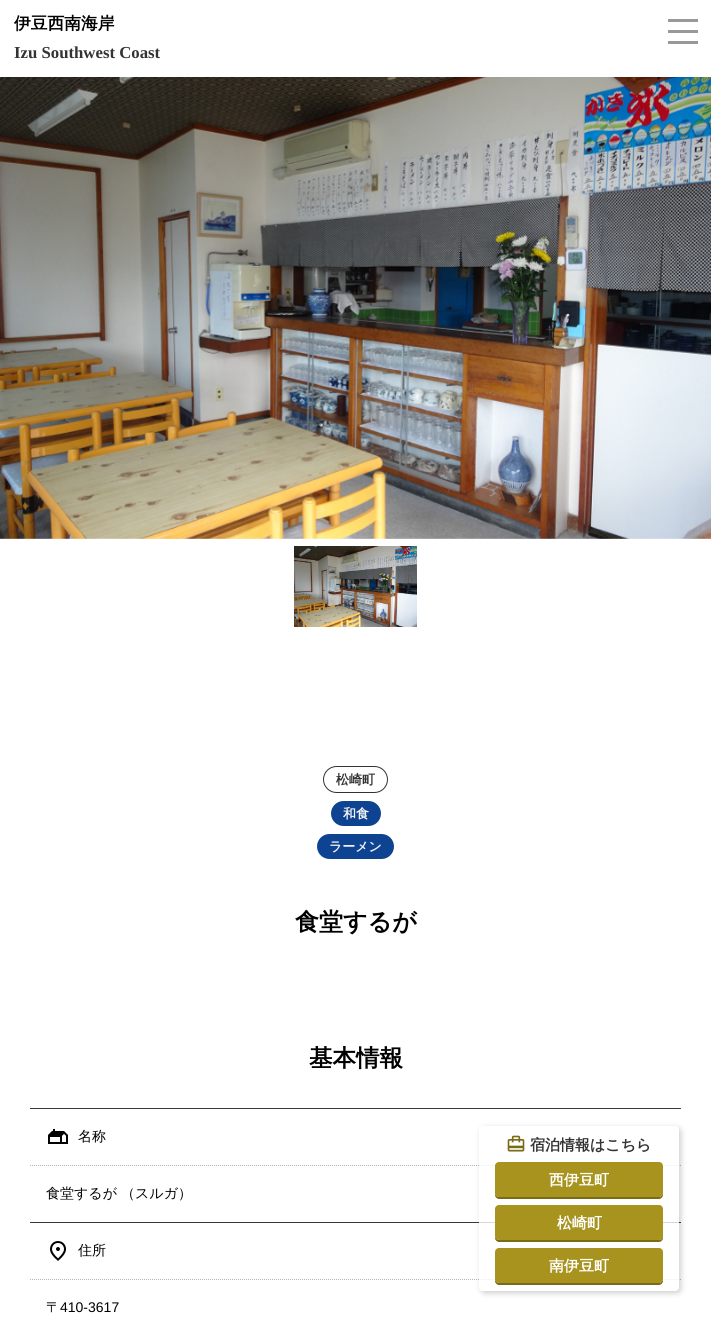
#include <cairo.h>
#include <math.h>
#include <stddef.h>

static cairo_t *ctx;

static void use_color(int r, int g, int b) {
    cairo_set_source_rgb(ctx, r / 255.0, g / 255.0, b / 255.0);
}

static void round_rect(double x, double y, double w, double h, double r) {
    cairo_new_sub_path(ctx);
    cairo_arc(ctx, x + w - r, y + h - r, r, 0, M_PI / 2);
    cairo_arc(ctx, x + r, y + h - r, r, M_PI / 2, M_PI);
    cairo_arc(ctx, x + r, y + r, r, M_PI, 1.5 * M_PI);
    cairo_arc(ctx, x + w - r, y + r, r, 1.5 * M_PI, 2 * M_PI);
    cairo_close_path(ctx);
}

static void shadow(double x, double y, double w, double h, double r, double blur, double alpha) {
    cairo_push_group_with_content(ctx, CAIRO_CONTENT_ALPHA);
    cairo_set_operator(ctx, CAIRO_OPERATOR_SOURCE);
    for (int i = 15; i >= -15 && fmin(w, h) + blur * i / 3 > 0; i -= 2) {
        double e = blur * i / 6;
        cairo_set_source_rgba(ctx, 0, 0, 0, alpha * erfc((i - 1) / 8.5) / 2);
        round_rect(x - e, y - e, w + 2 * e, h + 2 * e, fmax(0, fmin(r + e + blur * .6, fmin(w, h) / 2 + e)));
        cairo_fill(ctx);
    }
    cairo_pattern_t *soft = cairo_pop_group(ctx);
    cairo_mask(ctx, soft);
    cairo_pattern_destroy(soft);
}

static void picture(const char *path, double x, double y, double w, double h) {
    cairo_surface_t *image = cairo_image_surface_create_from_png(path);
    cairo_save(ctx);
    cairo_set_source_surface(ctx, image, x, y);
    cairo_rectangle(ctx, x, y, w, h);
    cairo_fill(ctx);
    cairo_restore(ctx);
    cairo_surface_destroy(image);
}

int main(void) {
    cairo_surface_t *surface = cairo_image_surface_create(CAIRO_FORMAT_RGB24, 711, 1323);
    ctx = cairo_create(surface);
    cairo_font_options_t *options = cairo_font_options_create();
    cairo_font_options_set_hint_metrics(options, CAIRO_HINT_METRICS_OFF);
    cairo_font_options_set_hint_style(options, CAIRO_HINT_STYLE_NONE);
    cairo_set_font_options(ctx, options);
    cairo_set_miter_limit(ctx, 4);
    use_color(255, 255, 255);
    cairo_paint(ctx);
    cairo_select_font_face(ctx, "WenQuanYi Zen Hei", CAIRO_FONT_SLANT_NORMAL, CAIRO_FONT_WEIGHT_BOLD);
    cairo_set_font_size(ctx, 16.75);
    use_color(0, 0, 0);
    cairo_move_to(ctx, 14, 29);
    cairo_show_text(ctx, "伊豆西南海岸");
    cairo_select_font_face(ctx, "Liberation Serif", CAIRO_FONT_SLANT_NORMAL, CAIRO_FONT_WEIGHT_BOLD);
    use_color(51, 51, 51);
    cairo_move_to(ctx, 14, 58);
    cairo_show_text(ctx, "Izu Southwest Coast");
    use_color(153, 153, 153);
    cairo_rectangle(ctx, 668, 19, 30, 3);
    cairo_fill(ctx);
    cairo_rectangle(ctx, 668, 30, 30, 3);
    cairo_fill(ctx);
    cairo_rectangle(ctx, 668, 41, 30, 3);
    cairo_fill(ctx);
    picture("img1.png", 0, 77, 711, 462);
    picture("img2.png", 294, 546, 123, 81);
    round_rect(323.5, 766.5, 64, 26, 13);
    use_color(51, 51, 51);
    cairo_set_line_width(ctx, 1);
    cairo_stroke(ctx);
    cairo_select_font_face(ctx, "WenQuanYi Zen Hei", CAIRO_FONT_SLANT_NORMAL, CAIRO_FONT_WEIGHT_BOLD);
    cairo_set_font_size(ctx, 13);
    cairo_move_to(ctx, 336, 784);
    cairo_show_text(ctx, "松崎町");
    use_color(14, 67, 145);
    round_rect(331, 801, 50, 25, 12.5);
    cairo_fill(ctx);
    use_color(242, 242, 242);
    cairo_move_to(ctx, 343, 818);
    cairo_show_text(ctx, "和食");
    use_color(14, 67, 145);
    round_rect(317, 834, 77, 25, 12.5);
    cairo_fill(ctx);
    use_color(242, 242, 242);
    cairo_move_to(ctx, 329, 851);
    cairo_show_text(ctx, "ラーメン");
    cairo_set_font_size(ctx, 24);
    use_color(0, 0, 0);
    cairo_move_to(ctx, 295, 930);
    cairo_show_text(ctx, "食堂するが");
    cairo_set_font_size(ctx, 23.5);
    cairo_move_to(ctx, 309, 1066);
    cairo_show_text(ctx, "基本情報");
    use_color(52, 58, 64);
    cairo_rectangle(ctx, 30, 1108, 651, 1);
    cairo_fill(ctx);
    cairo_new_path(ctx);
    cairo_move_to(ctx, 30, 1165.5);
    cairo_line_to(ctx, 681, 1165.5);
    use_color(173, 181, 189);
    cairo_set_dash(ctx, (double[]){1, 1}, 2, 0);
    cairo_stroke(ctx);
    picture("img3.png", 48, 1129, 20, 15);
    cairo_select_font_face(ctx, "WenQuanYi Zen Hei Medium", CAIRO_FONT_SLANT_NORMAL, CAIRO_FONT_WEIGHT_NORMAL);
    cairo_set_font_size(ctx, 14);
    use_color(0, 0, 0);
    cairo_move_to(ctx, 78, 1141);
    cairo_show_text(ctx, "名称");
    use_color(52, 58, 64);
    cairo_rectangle(ctx, 30, 1222, 651, 1);
    cairo_fill(ctx);
    use_color(0, 0, 0);
    cairo_move_to(ctx, 46, 1198);
    cairo_show_text(ctx, "食堂するが");
    cairo_move_to(ctx, 121, 1198);
    cairo_show_text(ctx, "（スルガ）");
    cairo_new_path(ctx);
    cairo_move_to(ctx, 30, 1279.5);
    cairo_line_to(ctx, 681, 1279.5);
    use_color(173, 181, 189);
    cairo_stroke(ctx);
    picture("img4.png", 50, 1241, 16, 20);
    use_color(0, 0, 0);
    cairo_move_to(ctx, 78, 1255);
    cairo_show_text(ctx, "住所");
    cairo_move_to(ctx, 46, 1312);
    cairo_show_text(ctx, "〒");
    cairo_select_font_face(ctx, "Liberation Sans", CAIRO_FONT_SLANT_NORMAL, CAIRO_FONT_WEIGHT_NORMAL);
    cairo_move_to(ctx, 60, 1312);
    cairo_show_text(ctx, "410-3617");
    cairo_save(ctx);
    cairo_set_fill_rule(ctx, CAIRO_FILL_RULE_EVEN_ODD);
    cairo_new_path(ctx);
    cairo_move_to(ctx, 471, 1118);
    cairo_line_to(ctx, 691, 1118);
    cairo_line_to(ctx, 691, 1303);
    cairo_line_to(ctx, 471, 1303);
    cairo_close_path(ctx);
    cairo_move_to(ctx, 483, 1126);
    cairo_line_to(ctx, 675, 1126);
    cairo_curve_to(ctx, 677, 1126, 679, 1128, 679, 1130);
    cairo_line_to(ctx, 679, 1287);
    cairo_curve_to(ctx, 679, 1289, 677, 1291, 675, 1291);
    cairo_line_to(ctx, 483, 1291);
    cairo_curve_to(ctx, 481, 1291, 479, 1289, 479, 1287);
    cairo_line_to(ctx, 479, 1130);
    cairo_curve_to(ctx, 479, 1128, 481, 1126, 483, 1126);
    cairo_close_path(ctx);
    cairo_clip(ctx);
    use_color(0, 0, 0);
    shadow(481, 1128, 200, 165, 4, 3, 0.2);
    cairo_restore(ctx);
    cairo_set_source_rgba(ctx, 1, 1, 1, 0.8);
    round_rect(479, 1126, 200, 165, 4);
    cairo_fill(ctx);
    picture("img5.png", 507, 1135, 18, 17);
    cairo_select_font_face(ctx, "WenQuanYi Zen Hei", CAIRO_FONT_SLANT_NORMAL, CAIRO_FONT_WEIGHT_BOLD);
    cairo_set_font_size(ctx, 15);
    use_color(51, 51, 51);
    cairo_move_to(ctx, 530, 1150);
    cairo_show_text(ctx, "宿泊情報はこちら");
    use_color(122, 108, 22);
    cairo_new_path(ctx);
    cairo_move_to(ctx, 495, 1193);
    cairo_line_to(ctx, 495, 1195);
    cairo_curve_to(ctx, 495, 1197, 497, 1199, 499, 1199);
    cairo_line_to(ctx, 659, 1199);
    cairo_curve_to(ctx, 661, 1199, 663, 1197, 663, 1195);
    cairo_line_to(ctx, 663, 1193);
    cairo_curve_to(ctx, 663, 1195, 661, 1197, 659, 1197);
    cairo_line_to(ctx, 499, 1197);
    cairo_curve_to(ctx, 497, 1197, 495, 1195, 495, 1193);
    cairo_close_path(ctx);
    cairo_fill(ctx);
    use_color(167, 147, 30);
    round_rect(495, 1162, 168, 35, 4);
    cairo_fill(ctx);
    use_color(255, 255, 255);
    cairo_move_to(ctx, 549, 1185);
    cairo_show_text(ctx, "西伊豆町");
    use_color(122, 108, 22);
    cairo_new_path(ctx);
    cairo_move_to(ctx, 495, 1236);
    cairo_line_to(ctx, 495, 1238);
    cairo_curve_to(ctx, 495, 1240, 497, 1242, 499, 1242);
    cairo_line_to(ctx, 659, 1242);
    cairo_curve_to(ctx, 661, 1242, 663, 1240, 663, 1238);
    cairo_line_to(ctx, 663, 1236);
    cairo_curve_to(ctx, 663, 1238, 661, 1240, 659, 1240);
    cairo_line_to(ctx, 499, 1240);
    cairo_curve_to(ctx, 497, 1240, 495, 1238, 495, 1236);
    cairo_close_path(ctx);
    cairo_fill(ctx);
    use_color(167, 147, 30);
    round_rect(495, 1205, 168, 35, 4);
    cairo_fill(ctx);
    use_color(255, 255, 255);
    cairo_move_to(ctx, 557, 1228);
    cairo_show_text(ctx, "松崎町");
    use_color(122, 108, 22);
    cairo_new_path(ctx);
    cairo_move_to(ctx, 495, 1279);
    cairo_line_to(ctx, 495, 1281);
    cairo_curve_to(ctx, 495, 1283, 497, 1285, 499, 1285);
    cairo_line_to(ctx, 659, 1285);
    cairo_curve_to(ctx, 661, 1285, 663, 1283, 663, 1281);
    cairo_line_to(ctx, 663, 1279);
    cairo_curve_to(ctx, 663, 1281, 661, 1283, 659, 1283);
    cairo_line_to(ctx, 499, 1283);
    cairo_curve_to(ctx, 497, 1283, 495, 1281, 495, 1279);
    cairo_close_path(ctx);
    cairo_fill(ctx);
    use_color(167, 147, 30);
    round_rect(495, 1248, 168, 35, 4);
    cairo_fill(ctx);
    use_color(255, 255, 255);
    cairo_move_to(ctx, 549, 1271);
    cairo_show_text(ctx, "南伊豆町");
    cairo_surface_write_to_png(surface, "result.png");
    cairo_font_options_destroy(options);
    cairo_destroy(ctx);
    cairo_surface_destroy(surface);
    return 0;
}
